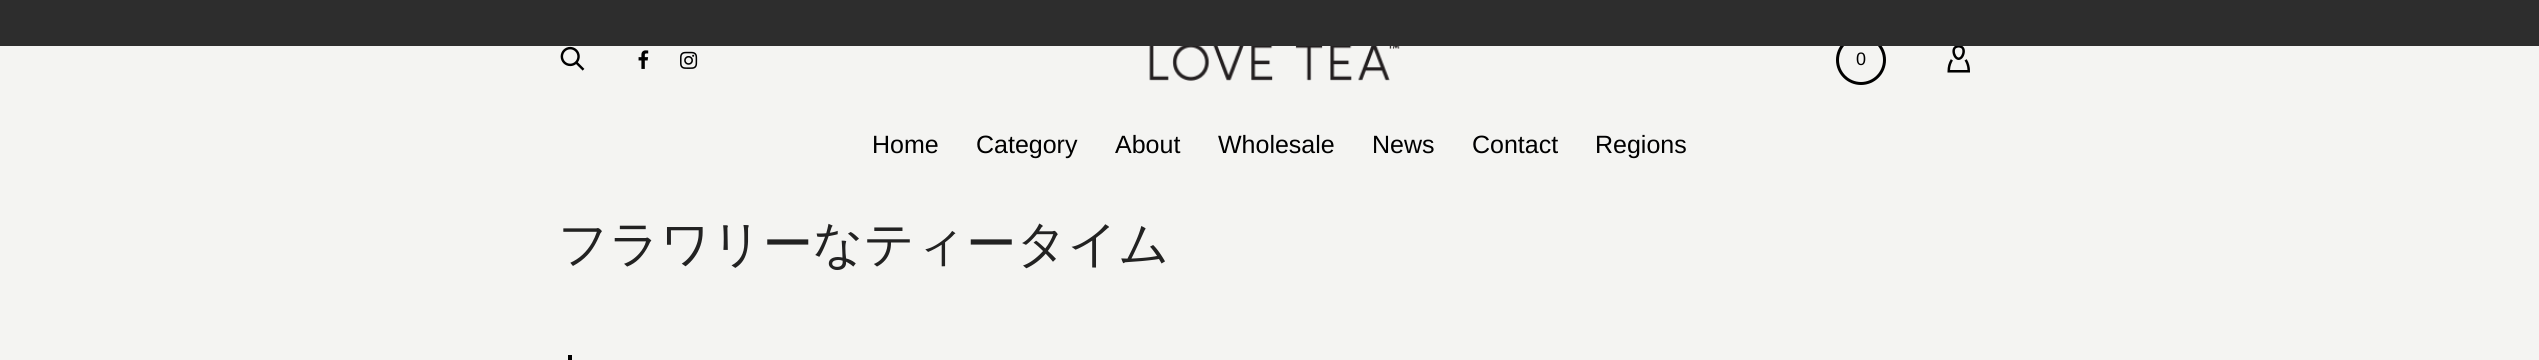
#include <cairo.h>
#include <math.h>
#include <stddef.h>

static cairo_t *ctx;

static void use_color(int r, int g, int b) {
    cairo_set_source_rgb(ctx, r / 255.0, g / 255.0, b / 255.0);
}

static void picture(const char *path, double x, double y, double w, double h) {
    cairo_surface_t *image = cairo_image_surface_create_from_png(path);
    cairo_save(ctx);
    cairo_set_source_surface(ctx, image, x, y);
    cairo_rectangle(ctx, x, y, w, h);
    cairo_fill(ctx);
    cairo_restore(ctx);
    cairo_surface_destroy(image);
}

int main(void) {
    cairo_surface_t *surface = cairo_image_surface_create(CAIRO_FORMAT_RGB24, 2539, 360);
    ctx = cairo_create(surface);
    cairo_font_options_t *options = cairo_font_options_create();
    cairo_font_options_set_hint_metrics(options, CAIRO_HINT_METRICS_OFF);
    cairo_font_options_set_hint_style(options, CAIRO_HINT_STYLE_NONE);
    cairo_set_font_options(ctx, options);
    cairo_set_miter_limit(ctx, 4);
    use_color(244, 244, 242);
    cairo_paint(ctx);
    cairo_arc(ctx, 1861, 60, 23.5, 0, 2 * M_PI);
    use_color(0, 0, 0);
    cairo_set_line_width(ctx, 3);
    cairo_stroke(ctx);
    use_color(45, 45, 45);
    cairo_rectangle(ctx, 0, 0, 2539, 46);
    cairo_fill(ctx);
    picture("img1.png", 560, 46, 25, 25);
    picture("img2.png", 638, 50, 11, 19);
    picture("img3.png", 680, 51, 18, 18);
    picture("img4.png", 1149, 46, 251, 35);
    cairo_select_font_face(ctx, "Liberation Sans", CAIRO_FONT_SLANT_NORMAL, CAIRO_FONT_WEIGHT_NORMAL);
    cairo_set_font_size(ctx, 18);
    use_color(0, 0, 0);
    cairo_move_to(ctx, 1856, 65);
    cairo_show_text(ctx, "0");
    picture("img5.png", 1947, 46, 23, 27);
    cairo_set_font_size(ctx, 25);
    cairo_move_to(ctx, 872, 153);
    cairo_show_text(ctx, "Home");
    cairo_move_to(ctx, 976, 153);
    cairo_show_text(ctx, "Category");
    cairo_move_to(ctx, 1115, 153);
    cairo_show_text(ctx, "About");
    cairo_move_to(ctx, 1218, 153);
    cairo_show_text(ctx, "Wholesale");
    cairo_move_to(ctx, 1372, 153);
    cairo_show_text(ctx, "News");
    cairo_move_to(ctx, 1472, 153);
    cairo_show_text(ctx, "Contact");
    cairo_move_to(ctx, 1595, 153);
    cairo_show_text(ctx, "Regions");
    cairo_select_font_face(ctx, "WenQuanYi Zen Hei Medium", CAIRO_FONT_SLANT_NORMAL, CAIRO_FONT_WEIGHT_NORMAL);
    cairo_set_font_size(ctx, 50);
    use_color(34, 34, 34);
    cairo_move_to(ctx, 558, 261);
    cairo_show_text(ctx, "フラワリーなティータイム");
    use_color(0, 0, 0);
    cairo_rectangle(ctx, 568, 355, 4, 5);
    cairo_fill(ctx);
    cairo_surface_write_to_png(surface, "result.png");
    cairo_font_options_destroy(options);
    cairo_destroy(ctx);
    cairo_surface_destroy(surface);
    return 0;
}
